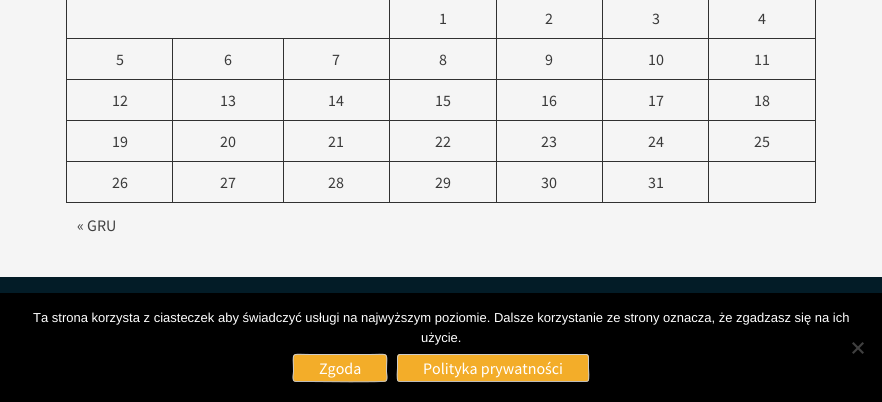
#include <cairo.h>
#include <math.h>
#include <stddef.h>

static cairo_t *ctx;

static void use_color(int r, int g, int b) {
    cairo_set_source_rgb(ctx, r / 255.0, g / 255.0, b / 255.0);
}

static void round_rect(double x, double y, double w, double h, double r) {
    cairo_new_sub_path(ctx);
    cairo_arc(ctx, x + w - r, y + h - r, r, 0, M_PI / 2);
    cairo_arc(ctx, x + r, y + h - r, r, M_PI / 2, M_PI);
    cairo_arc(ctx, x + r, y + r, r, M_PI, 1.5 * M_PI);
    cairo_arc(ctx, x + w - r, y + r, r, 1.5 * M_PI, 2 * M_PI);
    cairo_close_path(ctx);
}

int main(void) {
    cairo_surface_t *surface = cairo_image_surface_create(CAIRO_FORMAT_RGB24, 882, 402);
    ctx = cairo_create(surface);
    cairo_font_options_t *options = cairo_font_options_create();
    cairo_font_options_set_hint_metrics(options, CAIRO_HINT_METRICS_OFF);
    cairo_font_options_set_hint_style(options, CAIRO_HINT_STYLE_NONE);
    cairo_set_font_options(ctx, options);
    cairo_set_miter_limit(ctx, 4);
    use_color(245, 245, 245);
    cairo_paint(ctx);
    use_color(49, 49, 49);
    cairo_rectangle(ctx, 708, 38, 108, 1);
    cairo_fill(ctx);
    cairo_rectangle(ctx, 708, 79, 108, 1);
    cairo_fill(ctx);
    cairo_rectangle(ctx, 708, 120, 108, 1);
    cairo_fill(ctx);
    cairo_rectangle(ctx, 708, 161, 108, 1);
    cairo_fill(ctx);
    cairo_rectangle(ctx, 815, 161, 1, 42);
    cairo_fill(ctx);
    cairo_rectangle(ctx, 708, 202, 108, 1);
    cairo_fill(ctx);
    cairo_rectangle(ctx, 708, 161, 1, 42);
    cairo_fill(ctx);
    cairo_rectangle(ctx, 602, 161, 107, 1);
    cairo_fill(ctx);
    cairo_rectangle(ctx, 708, 120, 1, 42);
    cairo_fill(ctx);
    cairo_rectangle(ctx, 602, 120, 107, 1);
    cairo_fill(ctx);
    cairo_rectangle(ctx, 708, 79, 1, 42);
    cairo_fill(ctx);
    cairo_rectangle(ctx, 602, 79, 107, 1);
    cairo_fill(ctx);
    cairo_rectangle(ctx, 708, 38, 1, 42);
    cairo_fill(ctx);
    cairo_rectangle(ctx, 602, 38, 107, 1);
    cairo_fill(ctx);
    cairo_rectangle(ctx, 602, 202, 107, 1);
    cairo_fill(ctx);
    cairo_rectangle(ctx, 602, 161, 1, 42);
    cairo_fill(ctx);
    cairo_rectangle(ctx, 496, 161, 107, 1);
    cairo_fill(ctx);
    cairo_rectangle(ctx, 602, 120, 1, 42);
    cairo_fill(ctx);
    cairo_rectangle(ctx, 496, 120, 107, 1);
    cairo_fill(ctx);
    cairo_rectangle(ctx, 602, 79, 1, 42);
    cairo_fill(ctx);
    cairo_rectangle(ctx, 496, 79, 107, 1);
    cairo_fill(ctx);
    cairo_rectangle(ctx, 602, 38, 1, 42);
    cairo_fill(ctx);
    cairo_rectangle(ctx, 496, 38, 107, 1);
    cairo_fill(ctx);
    cairo_rectangle(ctx, 496, 202, 107, 1);
    cairo_fill(ctx);
    cairo_rectangle(ctx, 496, 161, 1, 42);
    cairo_fill(ctx);
    cairo_rectangle(ctx, 389, 161, 108, 1);
    cairo_fill(ctx);
    cairo_rectangle(ctx, 496, 120, 1, 42);
    cairo_fill(ctx);
    cairo_rectangle(ctx, 389, 120, 108, 1);
    cairo_fill(ctx);
    cairo_rectangle(ctx, 496, 79, 1, 42);
    cairo_fill(ctx);
    cairo_rectangle(ctx, 389, 79, 108, 1);
    cairo_fill(ctx);
    cairo_rectangle(ctx, 496, 38, 1, 42);
    cairo_fill(ctx);
    cairo_rectangle(ctx, 389, 38, 108, 1);
    cairo_fill(ctx);
    cairo_rectangle(ctx, 389, 202, 108, 1);
    cairo_fill(ctx);
    cairo_rectangle(ctx, 389, 161, 1, 42);
    cairo_fill(ctx);
    cairo_rectangle(ctx, 283, 161, 107, 1);
    cairo_fill(ctx);
    cairo_rectangle(ctx, 389, 120, 1, 42);
    cairo_fill(ctx);
    cairo_rectangle(ctx, 283, 120, 107, 1);
    cairo_fill(ctx);
    cairo_rectangle(ctx, 389, 79, 1, 42);
    cairo_fill(ctx);
    cairo_rectangle(ctx, 283, 79, 107, 1);
    cairo_fill(ctx);
    cairo_rectangle(ctx, 389, 38, 1, 42);
    cairo_fill(ctx);
    cairo_rectangle(ctx, 283, 38, 107, 1);
    cairo_fill(ctx);
    cairo_rectangle(ctx, 389, 0, 1, 39);
    cairo_fill(ctx);
    cairo_select_font_face(ctx, "Source Sans Pro", CAIRO_FONT_SLANT_NORMAL, CAIRO_FONT_WEIGHT_NORMAL);
    cairo_set_font_size(ctx, 16);
    use_color(58, 58, 58);
    cairo_move_to(ctx, 439, 24);
    cairo_show_text(ctx, "1");
    use_color(49, 49, 49);
    cairo_rectangle(ctx, 496, 0, 1, 39);
    cairo_fill(ctx);
    use_color(58, 58, 58);
    cairo_move_to(ctx, 545, 24);
    cairo_show_text(ctx, "2");
    use_color(49, 49, 49);
    cairo_rectangle(ctx, 602, 0, 1, 39);
    cairo_fill(ctx);
    use_color(58, 58, 58);
    cairo_move_to(ctx, 652, 24);
    cairo_show_text(ctx, "3");
    use_color(49, 49, 49);
    cairo_rectangle(ctx, 708, 0, 1, 39);
    cairo_fill(ctx);
    use_color(58, 58, 58);
    cairo_move_to(ctx, 758, 24);
    cairo_show_text(ctx, "4");
    use_color(49, 49, 49);
    cairo_rectangle(ctx, 283, 202, 107, 1);
    cairo_fill(ctx);
    cairo_rectangle(ctx, 283, 161, 1, 42);
    cairo_fill(ctx);
    cairo_rectangle(ctx, 172, 161, 112, 1);
    cairo_fill(ctx);
    cairo_rectangle(ctx, 283, 120, 1, 42);
    cairo_fill(ctx);
    cairo_rectangle(ctx, 172, 120, 112, 1);
    cairo_fill(ctx);
    cairo_rectangle(ctx, 283, 79, 1, 42);
    cairo_fill(ctx);
    cairo_rectangle(ctx, 172, 79, 112, 1);
    cairo_fill(ctx);
    cairo_rectangle(ctx, 283, 38, 1, 42);
    cairo_fill(ctx);
    cairo_rectangle(ctx, 172, 38, 112, 1);
    cairo_fill(ctx);
    cairo_rectangle(ctx, 172, 202, 112, 1);
    cairo_fill(ctx);
    cairo_rectangle(ctx, 172, 161, 1, 42);
    cairo_fill(ctx);
    cairo_rectangle(ctx, 66, 161, 107, 1);
    cairo_fill(ctx);
    cairo_rectangle(ctx, 172, 120, 1, 42);
    cairo_fill(ctx);
    cairo_rectangle(ctx, 66, 120, 107, 1);
    cairo_fill(ctx);
    cairo_rectangle(ctx, 172, 79, 1, 42);
    cairo_fill(ctx);
    cairo_rectangle(ctx, 66, 79, 107, 1);
    cairo_fill(ctx);
    cairo_rectangle(ctx, 172, 38, 1, 42);
    cairo_fill(ctx);
    cairo_rectangle(ctx, 66, 38, 107, 1);
    cairo_fill(ctx);
    cairo_rectangle(ctx, 66, 202, 107, 1);
    cairo_fill(ctx);
    cairo_rectangle(ctx, 66, 161, 1, 42);
    cairo_fill(ctx);
    cairo_rectangle(ctx, 66, 120, 1, 42);
    cairo_fill(ctx);
    cairo_rectangle(ctx, 66, 79, 1, 42);
    cairo_fill(ctx);
    cairo_rectangle(ctx, 66, 0, 1, 80);
    cairo_fill(ctx);
    use_color(58, 58, 58);
    cairo_move_to(ctx, 116, 65);
    cairo_show_text(ctx, "5");
    cairo_move_to(ctx, 224, 65);
    cairo_show_text(ctx, "6");
    cairo_move_to(ctx, 332, 65);
    cairo_show_text(ctx, "7");
    cairo_move_to(ctx, 439, 65);
    cairo_show_text(ctx, "8");
    cairo_move_to(ctx, 545, 65);
    cairo_show_text(ctx, "9");
    cairo_move_to(ctx, 648, 65);
    cairo_show_text(ctx, "10");
    use_color(49, 49, 49);
    cairo_rectangle(ctx, 815, 120, 1, 42);
    cairo_fill(ctx);
    cairo_rectangle(ctx, 815, 79, 1, 42);
    cairo_fill(ctx);
    cairo_rectangle(ctx, 815, 0, 1, 80);
    cairo_fill(ctx);
    use_color(64, 64, 64);
    cairo_move_to(ctx, 754, 65);
    cairo_show_text(ctx, "11");
    use_color(58, 58, 58);
    cairo_move_to(ctx, 112, 106);
    cairo_show_text(ctx, "12");
    cairo_move_to(ctx, 220, 106);
    cairo_show_text(ctx, "13");
    cairo_move_to(ctx, 328, 106);
    cairo_show_text(ctx, "14");
    cairo_move_to(ctx, 435, 106);
    cairo_show_text(ctx, "15");
    cairo_move_to(ctx, 541, 106);
    cairo_show_text(ctx, "16");
    cairo_move_to(ctx, 648, 106);
    cairo_show_text(ctx, "17");
    cairo_move_to(ctx, 754, 106);
    cairo_show_text(ctx, "18");
    cairo_move_to(ctx, 112, 147);
    cairo_show_text(ctx, "19");
    cairo_move_to(ctx, 220, 147);
    cairo_show_text(ctx, "20");
    cairo_move_to(ctx, 328, 147);
    cairo_show_text(ctx, "21");
    cairo_move_to(ctx, 435, 147);
    cairo_show_text(ctx, "22");
    cairo_move_to(ctx, 541, 147);
    cairo_show_text(ctx, "23");
    cairo_move_to(ctx, 648, 147);
    cairo_show_text(ctx, "24");
    cairo_move_to(ctx, 754, 147);
    cairo_show_text(ctx, "25");
    cairo_move_to(ctx, 112, 188);
    cairo_show_text(ctx, "26");
    cairo_move_to(ctx, 220, 188);
    cairo_show_text(ctx, "27");
    cairo_move_to(ctx, 328, 188);
    cairo_show_text(ctx, "28");
    cairo_move_to(ctx, 435, 188);
    cairo_show_text(ctx, "29");
    cairo_move_to(ctx, 541, 188);
    cairo_show_text(ctx, "30");
    cairo_move_to(ctx, 648, 188);
    cairo_show_text(ctx, "31");
    use_color(64, 64, 64);
    cairo_move_to(ctx, 77, 231);
    cairo_show_text(ctx, "« GRU");
    use_color(3, 28, 39);
    cairo_rectangle(ctx, 0, 277, 882, 16);
    cairo_fill(ctx);
    use_color(0, 0, 0);
    cairo_rectangle(ctx, 0, 293, 882, 109);
    cairo_fill(ctx);
    cairo_select_font_face(ctx, "Liberation Sans", CAIRO_FONT_SLANT_NORMAL, CAIRO_FONT_WEIGHT_NORMAL);
    cairo_set_font_size(ctx, 13);
    use_color(255, 255, 255);
    cairo_move_to(ctx, 33, 322);
    cairo_show_text(ctx, "Ta strona korzysta z ciasteczek aby świadczyć usługi na najwyższym poziomie. Dalsze korzystanie ze strony oznacza, że zgadzasz się na ich");
    cairo_move_to(ctx, 421, 342);
    cairo_show_text(ctx, "użycie.");
    use_color(64, 64, 64);
    cairo_new_path(ctx);
    cairo_move_to(ctx, 862.5, 342);
    cairo_line_to(ctx, 864, 343.5);
    cairo_line_to(ctx, 853.5, 354);
    cairo_line_to(ctx, 852, 352.5);
    cairo_close_path(ctx);
    cairo_fill(ctx);
    cairo_new_path(ctx);
    cairo_move_to(ctx, 852, 343.5);
    cairo_line_to(ctx, 853.5, 342);
    cairo_line_to(ctx, 864, 352.5);
    cairo_line_to(ctx, 862.5, 354);
    cairo_close_path(ctx);
    cairo_fill(ctx);
    use_color(243, 173, 41);
    round_rect(293, 354, 94, 28, 3);
    cairo_fill(ctx);
    cairo_new_path(ctx);
    cairo_move_to(ctx, 386, 381);
    cairo_line_to(ctx, 385.5, 381);
    cairo_curve_to(ctx, 383.5, 382.5, 318.5, 381.5, 310.5, 381.5);
    cairo_line_to(ctx, 296, 381.5);
    cairo_line_to(ctx, 294, 381);
    use_color(187, 187, 187);
    cairo_set_line_width(ctx, 1);
    cairo_stroke(ctx);
    cairo_new_path(ctx);
    cairo_move_to(ctx, 294, 381);
    cairo_curve_to(ctx, 292, 378.5, 293.5, 374, 293.5, 371.5);
    cairo_curve_to(ctx, 293.5, 351, 289.5, 354.5, 310.5, 354.5);
    cairo_line_to(ctx, 369.5, 354.5);
    cairo_curve_to(ctx, 390.5, 354.5, 386.5, 351, 386.5, 371.5);
    cairo_curve_to(ctx, 386.5, 374, 388, 378.5, 386, 381);
    use_color(204, 204, 204);
    cairo_stroke(ctx);
    cairo_select_font_face(ctx, "Source Sans Pro", CAIRO_FONT_SLANT_NORMAL, CAIRO_FONT_WEIGHT_NORMAL);
    cairo_set_font_size(ctx, 16);
    use_color(255, 255, 255);
    cairo_move_to(ctx, 319, 374);
    cairo_show_text(ctx, "Zgoda");
    use_color(243, 173, 41);
    round_rect(397, 354, 192, 28, 3);
    cairo_fill(ctx);
    cairo_new_path(ctx);
    cairo_move_to(ctx, 588, 381);
    cairo_line_to(ctx, 586, 381.5);
    cairo_line_to(ctx, 400, 381.5);
    cairo_line_to(ctx, 398, 381);
    use_color(187, 187, 187);
    cairo_stroke(ctx);
    cairo_new_path(ctx);
    cairo_move_to(ctx, 398, 381);
    cairo_curve_to(ctx, 396.5, 379, 397.5, 370.5, 397.5, 368);
    cairo_line_to(ctx, 397.5, 360.5);
    cairo_curve_to(ctx, 397.5, 359, 397, 354.5, 400, 354.5);
    cairo_line_to(ctx, 586, 354.5);
    cairo_curve_to(ctx, 589, 354.5, 588.5, 359, 588.5, 360.5);
    cairo_line_to(ctx, 588.5, 368);
    cairo_curve_to(ctx, 588.5, 370.5, 589.5, 379, 588, 381);
    use_color(204, 204, 204);
    cairo_stroke(ctx);
    use_color(255, 255, 255);
    cairo_move_to(ctx, 423, 374);
    cairo_show_text(ctx, "Polityka prywatności");
    cairo_surface_write_to_png(surface, "result.png");
    cairo_font_options_destroy(options);
    cairo_destroy(ctx);
    cairo_surface_destroy(surface);
    return 0;
}
